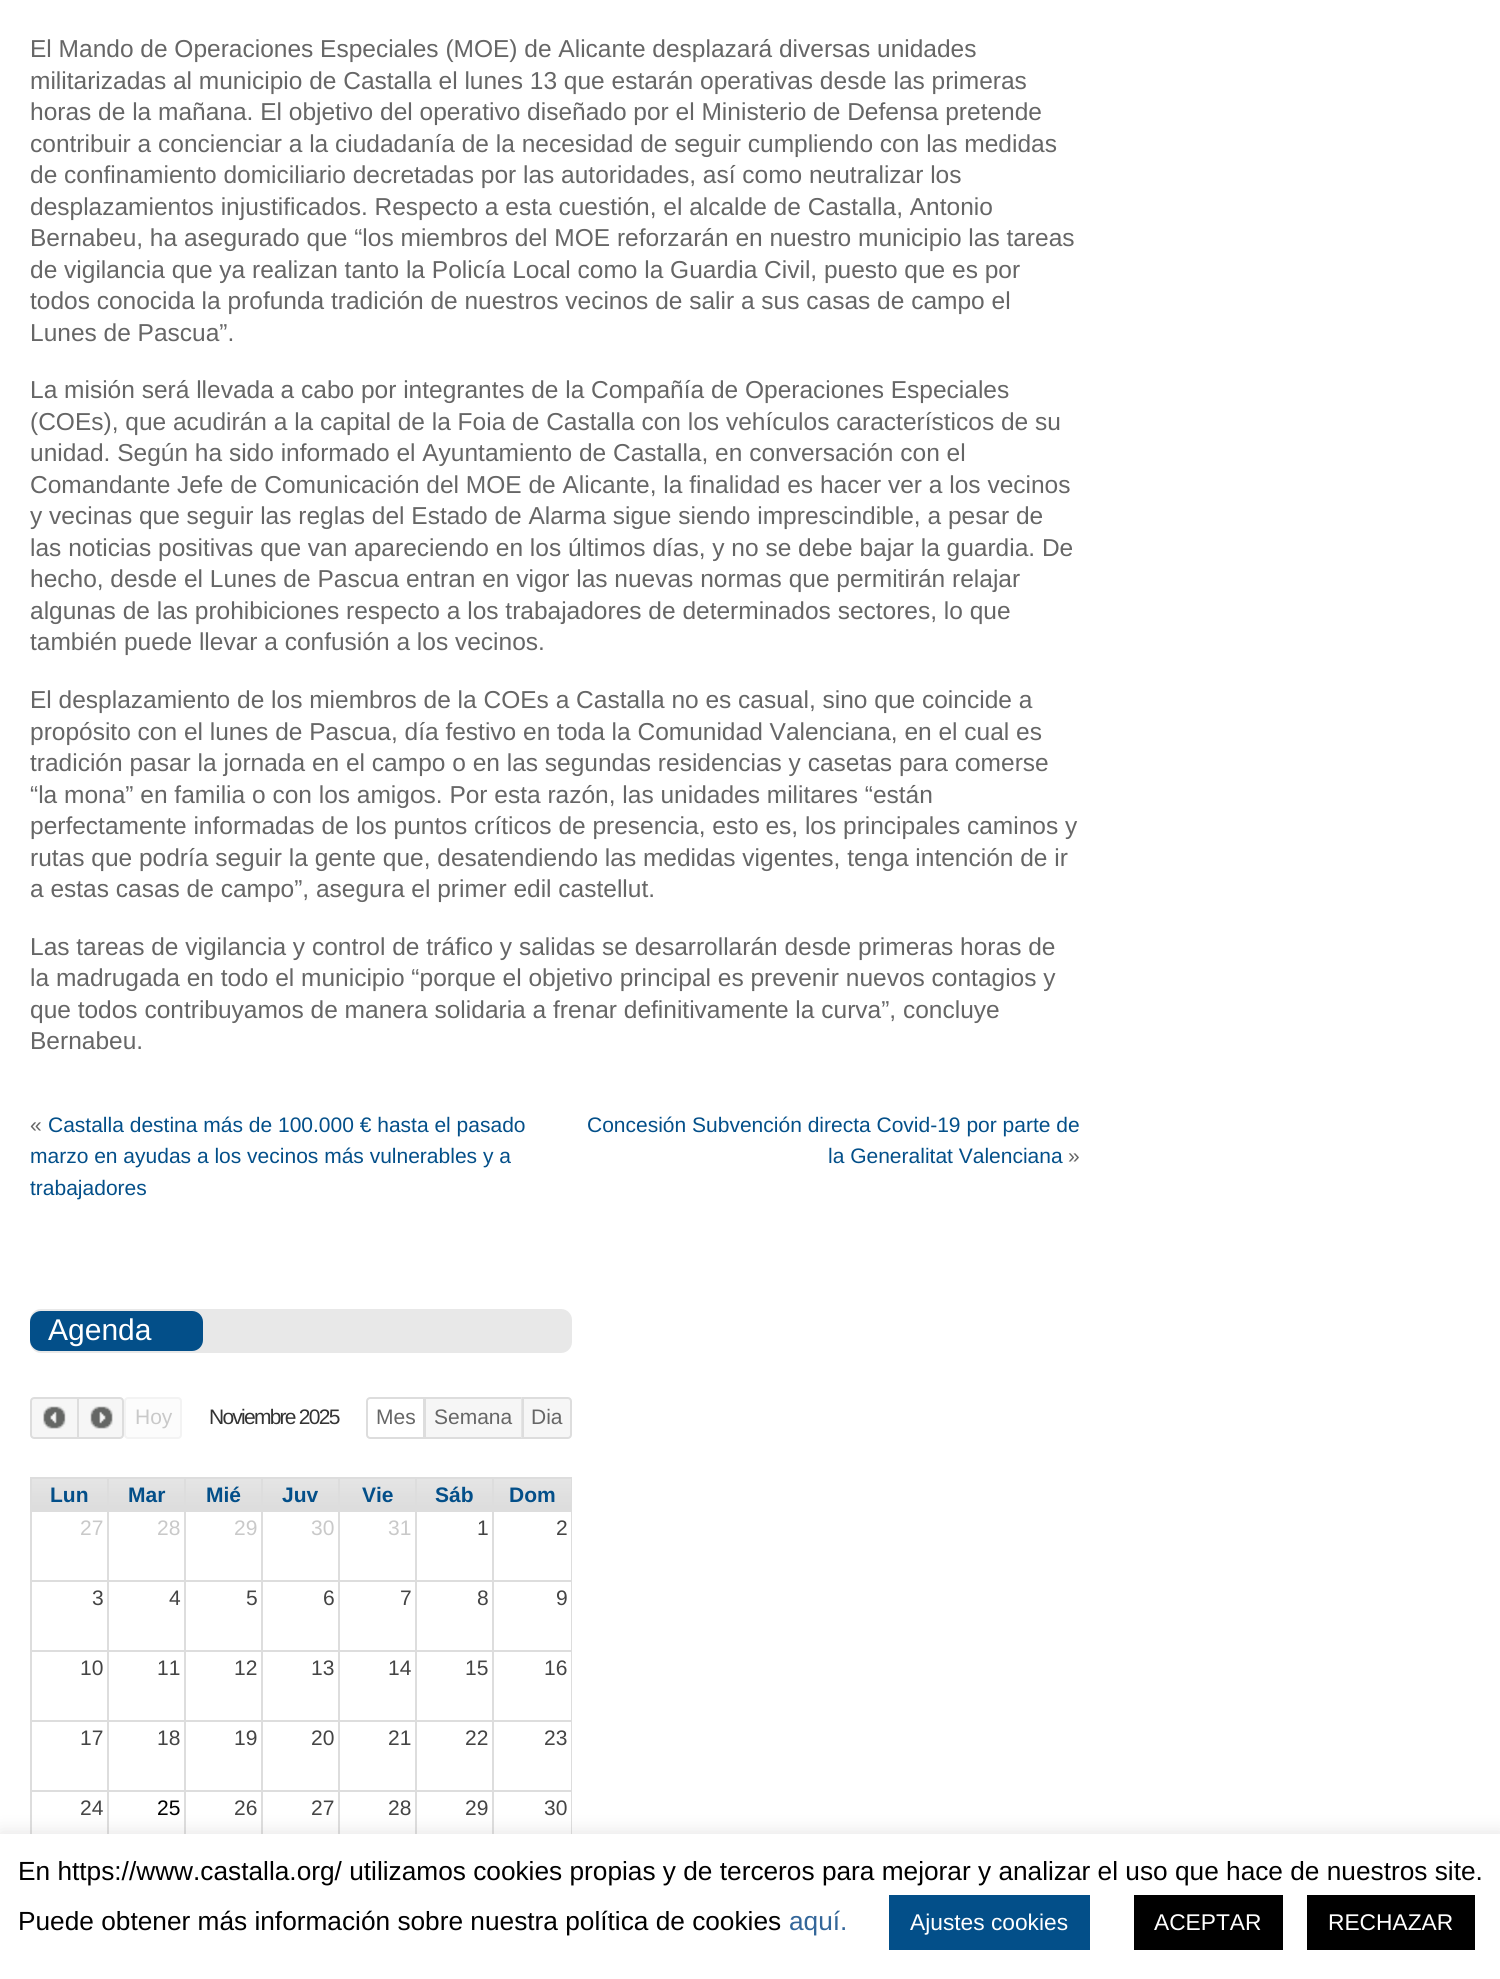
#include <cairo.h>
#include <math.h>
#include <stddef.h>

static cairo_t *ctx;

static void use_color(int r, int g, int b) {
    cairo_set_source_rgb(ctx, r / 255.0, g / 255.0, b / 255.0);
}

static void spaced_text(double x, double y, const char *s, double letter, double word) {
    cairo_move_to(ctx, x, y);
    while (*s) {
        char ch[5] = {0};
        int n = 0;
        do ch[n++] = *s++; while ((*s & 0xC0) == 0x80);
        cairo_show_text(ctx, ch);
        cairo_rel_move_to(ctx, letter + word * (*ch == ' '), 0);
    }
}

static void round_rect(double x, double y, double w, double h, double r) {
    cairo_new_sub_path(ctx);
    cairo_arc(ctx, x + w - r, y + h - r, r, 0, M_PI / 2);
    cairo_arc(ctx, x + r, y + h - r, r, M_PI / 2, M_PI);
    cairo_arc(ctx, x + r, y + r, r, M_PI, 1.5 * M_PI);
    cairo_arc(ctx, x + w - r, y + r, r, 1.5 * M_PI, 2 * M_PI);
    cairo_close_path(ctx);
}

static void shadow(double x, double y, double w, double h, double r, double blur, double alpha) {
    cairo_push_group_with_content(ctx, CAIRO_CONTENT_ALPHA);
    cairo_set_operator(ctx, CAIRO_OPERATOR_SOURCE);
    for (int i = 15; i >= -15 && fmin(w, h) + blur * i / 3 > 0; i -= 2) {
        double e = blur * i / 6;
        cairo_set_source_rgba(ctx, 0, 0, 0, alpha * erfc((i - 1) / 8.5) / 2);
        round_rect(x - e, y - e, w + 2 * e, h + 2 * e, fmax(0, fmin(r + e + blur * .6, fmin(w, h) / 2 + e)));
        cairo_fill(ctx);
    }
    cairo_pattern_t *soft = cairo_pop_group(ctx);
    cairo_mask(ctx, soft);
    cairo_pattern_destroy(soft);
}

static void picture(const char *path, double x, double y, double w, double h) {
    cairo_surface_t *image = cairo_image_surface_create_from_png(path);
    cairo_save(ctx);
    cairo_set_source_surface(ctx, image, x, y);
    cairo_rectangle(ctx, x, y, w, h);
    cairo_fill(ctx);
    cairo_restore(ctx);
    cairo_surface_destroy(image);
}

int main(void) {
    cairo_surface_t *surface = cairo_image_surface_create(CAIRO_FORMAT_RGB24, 1500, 1979);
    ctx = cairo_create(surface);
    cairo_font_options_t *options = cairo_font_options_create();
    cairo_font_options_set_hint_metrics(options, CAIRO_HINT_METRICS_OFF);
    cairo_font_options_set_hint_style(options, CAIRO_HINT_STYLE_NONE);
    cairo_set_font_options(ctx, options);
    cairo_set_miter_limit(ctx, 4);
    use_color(255, 255, 255);
    cairo_paint(ctx);
    cairo_select_font_face(ctx, "Liberation Sans", CAIRO_FONT_SLANT_NORMAL, CAIRO_FONT_WEIGHT_NORMAL);
    cairo_set_font_size(ctx, 24.5);
    use_color(102, 102, 102);
    cairo_move_to(ctx, 30, 57);
    cairo_show_text(ctx, "El Mando de Operaciones Especiales (MOE) de Alicante desplazará diversas unidades");
    cairo_move_to(ctx, 30, 89);
    cairo_show_text(ctx, "militarizadas al municipio de Castalla el lunes 13 que estarán operativas desde las primeras");
    cairo_move_to(ctx, 30, 120);
    cairo_show_text(ctx, "horas de la mañana. El objetivo del operativo diseñado por el Ministerio de Defensa pretende");
    cairo_move_to(ctx, 30, 152);
    cairo_show_text(ctx, "contribuir a concienciar a la ciudadanía de la necesidad de seguir cumpliendo con las medidas");
    cairo_move_to(ctx, 30, 183);
    cairo_show_text(ctx, "de confinamiento domiciliario decretadas por las autoridades, así como neutralizar los");
    cairo_move_to(ctx, 30, 215);
    cairo_show_text(ctx, "desplazamientos injustificados. Respecto a esta cuestión, el alcalde de Castalla, Antonio");
    cairo_move_to(ctx, 30, 246);
    cairo_show_text(ctx, "Bernabeu, ha asegurado que “los miembros del MOE reforzarán en nuestro municipio las tareas");
    cairo_move_to(ctx, 30, 278);
    cairo_show_text(ctx, "de vigilancia que ya realizan tanto la Policía Local como la Guardia Civil, puesto que es por");
    cairo_move_to(ctx, 30, 309);
    cairo_show_text(ctx, "todos conocida la profunda tradición de nuestros vecinos de salir a sus casas de campo el");
    cairo_move_to(ctx, 30, 341);
    cairo_show_text(ctx, "Lunes de Pascua”.");
    cairo_move_to(ctx, 30, 398);
    cairo_show_text(ctx, "La misión será llevada a cabo por integrantes de la Compañía de Operaciones Especiales");
    cairo_move_to(ctx, 30, 430);
    cairo_show_text(ctx, "(COEs), que acudirán a la capital de la Foia de Castalla con los vehículos característicos de su");
    cairo_move_to(ctx, 30, 461);
    cairo_show_text(ctx, "unidad. Según ha sido informado el Ayuntamiento de Castalla, en conversación con el");
    cairo_move_to(ctx, 30, 493);
    cairo_show_text(ctx, "Comandante Jefe de Comunicación del MOE de Alicante, la finalidad es hacer ver a los vecinos");
    cairo_move_to(ctx, 30, 524);
    cairo_show_text(ctx, "y vecinas que seguir las reglas del Estado de Alarma sigue siendo imprescindible, a pesar de");
    cairo_move_to(ctx, 30, 556);
    cairo_show_text(ctx, "las noticias positivas que van apareciendo en los últimos días, y no se debe bajar la guardia. De");
    cairo_move_to(ctx, 30, 587);
    cairo_show_text(ctx, "hecho, desde el Lunes de Pascua entran en vigor las nuevas normas que permitirán relajar");
    cairo_move_to(ctx, 30, 619);
    cairo_show_text(ctx, "algunas de las prohibiciones respecto a los trabajadores de determinados sectores, lo que");
    cairo_move_to(ctx, 30, 650);
    cairo_show_text(ctx, "también puede llevar a confusión a los vecinos.");
    cairo_move_to(ctx, 30, 708);
    cairo_show_text(ctx, "El desplazamiento de los miembros de la COEs a Castalla no es casual, sino que coincide a");
    cairo_move_to(ctx, 30, 740);
    cairo_show_text(ctx, "propósito con el lunes de Pascua, día festivo en toda la Comunidad Valenciana, en el cual es");
    cairo_move_to(ctx, 30, 771);
    cairo_show_text(ctx, "tradición pasar la jornada en el campo o en las segundas residencias y casetas para comerse");
    cairo_move_to(ctx, 30, 803);
    cairo_show_text(ctx, "“la mona” en familia o con los amigos. Por esta razón, las unidades militares “están");
    cairo_move_to(ctx, 30, 834);
    cairo_show_text(ctx, "perfectamente informadas de los puntos críticos de presencia, esto es, los principales caminos y");
    cairo_move_to(ctx, 30, 866);
    cairo_show_text(ctx, "rutas que podría seguir la gente que, desatendiendo las medidas vigentes, tenga intención de ir");
    cairo_move_to(ctx, 30, 897);
    cairo_show_text(ctx, "a estas casas de campo”, asegura el primer edil castellut.");
    cairo_move_to(ctx, 30, 955);
    cairo_show_text(ctx, "Las tareas de vigilancia y control de tráfico y salidas se desarrollarán desde primeras horas de");
    cairo_move_to(ctx, 30, 986);
    cairo_show_text(ctx, "la madrugada en todo el municipio “porque el objetivo principal es prevenir nuevos contagios y");
    cairo_move_to(ctx, 30, 1018);
    cairo_show_text(ctx, "que todos contribuyamos de manera solidaria a frenar definitivamente la curva”, concluye");
    cairo_move_to(ctx, 30, 1049);
    cairo_show_text(ctx, "Bernabeu.");
    cairo_set_font_size(ctx, 21);
    cairo_move_to(ctx, 30, 1132);
    cairo_show_text(ctx, "«");
    use_color(3, 79, 137);
    cairo_move_to(ctx, 48, 1132);
    cairo_show_text(ctx, "Castalla destina más de 100.000 € hasta el pasado");
    cairo_move_to(ctx, 30, 1163);
    cairo_show_text(ctx, "marzo en ayudas a los vecinos más vulnerables y a");
    cairo_move_to(ctx, 30, 1195);
    cairo_show_text(ctx, "trabajadores");
    cairo_move_to(ctx, 587, 1132);
    cairo_show_text(ctx, "Concesión Subvención directa Covid-19 por parte de");
    cairo_move_to(ctx, 828, 1163);
    cairo_show_text(ctx, "la Generalitat Valenciana");
    use_color(102, 102, 102);
    cairo_move_to(ctx, 1068, 1163);
    cairo_show_text(ctx, "»");
    use_color(232, 232, 232);
    round_rect(30, 1309, 542, 44, 11);
    cairo_fill(ctx);
    use_color(3, 79, 137);
    round_rect(30, 1311, 173, 40, 11);
    cairo_fill(ctx);
    cairo_set_font_size(ctx, 30);
    use_color(255, 255, 255);
    cairo_move_to(ctx, 48, 1340);
    cairo_show_text(ctx, "Agenda");
    use_color(246, 246, 246);
    cairo_new_path(ctx);
    cairo_move_to(ctx, 34, 1398);
    cairo_line_to(ctx, 78, 1398);
    cairo_line_to(ctx, 78, 1438);
    cairo_line_to(ctx, 34, 1438);
    cairo_curve_to(ctx, 32.5, 1438, 31, 1436.5, 31, 1435);
    cairo_line_to(ctx, 31, 1401);
    cairo_curve_to(ctx, 31, 1399.5, 32.5, 1398, 34, 1398);
    cairo_close_path(ctx);
    cairo_fill_preserve(ctx);
    use_color(221, 221, 221);
    cairo_stroke(ctx);
    picture("img1.png", 43, 1406, 23, 23);
    use_color(246, 246, 246);
    cairo_new_path(ctx);
    cairo_move_to(ctx, 78, 1398);
    cairo_line_to(ctx, 120, 1398);
    cairo_curve_to(ctx, 121.5, 1398, 123, 1399.5, 123, 1401);
    cairo_line_to(ctx, 123, 1435);
    cairo_curve_to(ctx, 123, 1436.5, 121.5, 1438, 120, 1438);
    cairo_line_to(ctx, 78, 1438);
    cairo_close_path(ctx);
    cairo_fill_preserve(ctx);
    use_color(221, 221, 221);
    cairo_stroke(ctx);
    picture("img2.png", 90, 1406, 23, 23);
    use_color(252, 252, 252);
    round_rect(125, 1398, 56, 40, 3);
    cairo_fill_preserve(ctx);
    use_color(243, 243, 243);
    cairo_stroke(ctx);
    cairo_set_font_size(ctx, 21);
    use_color(201, 201, 201);
    cairo_move_to(ctx, 135, 1424);
    cairo_show_text(ctx, "Hoy");
    use_color(51, 51, 51);
    spaced_text(209, 1424, "Noviembre 2025", -1.75, 0);
    use_color(246, 246, 246);
    cairo_rectangle(ctx, 425, 1398, 97, 40);
    cairo_fill_preserve(ctx);
    use_color(221, 221, 221);
    cairo_stroke(ctx);
    use_color(255, 255, 255);
    cairo_new_path(ctx);
    cairo_move_to(ctx, 370, 1398);
    cairo_line_to(ctx, 424, 1398);
    cairo_line_to(ctx, 424, 1438);
    cairo_line_to(ctx, 370, 1438);
    cairo_curve_to(ctx, 368.5, 1438, 367, 1436.5, 367, 1435);
    cairo_line_to(ctx, 367, 1401);
    cairo_curve_to(ctx, 367, 1399.5, 368.5, 1398, 370, 1398);
    cairo_close_path(ctx);
    cairo_fill_preserve(ctx);
    use_color(221, 221, 221);
    cairo_stroke(ctx);
    use_color(102, 102, 102);
    cairo_move_to(ctx, 376, 1424);
    cairo_show_text(ctx, "Mes");
    cairo_move_to(ctx, 434, 1424);
    cairo_show_text(ctx, "Semana");
    use_color(246, 246, 246);
    cairo_new_path(ctx);
    cairo_move_to(ctx, 523, 1398);
    cairo_line_to(ctx, 568, 1398);
    cairo_curve_to(ctx, 569.5, 1398, 571, 1399.5, 571, 1401);
    cairo_line_to(ctx, 571, 1435);
    cairo_curve_to(ctx, 571, 1436.5, 569.5, 1438, 568, 1438);
    cairo_line_to(ctx, 523, 1438);
    cairo_close_path(ctx);
    cairo_fill_preserve(ctx);
    use_color(221, 221, 221);
    cairo_stroke(ctx);
    picture("img3.png", 521, 1397, 1, 41);
    use_color(102, 102, 102);
    cairo_move_to(ctx, 531, 1424);
    cairo_show_text(ctx, "Dia");
    picture("img4.png", 32, 1479, 75, 31);
    use_color(221, 221, 221);
    cairo_rectangle(ctx, 492, 1477, 80, 2);
    cairo_fill(ctx);
    cairo_rectangle(ctx, 492, 1510, 80, 2);
    cairo_fill(ctx);
    cairo_rectangle(ctx, 492, 1580, 80, 2);
    cairo_fill(ctx);
    cairo_rectangle(ctx, 492, 1650, 80, 2);
    cairo_fill(ctx);
    cairo_rectangle(ctx, 492, 1720, 80, 2);
    cairo_fill(ctx);
    cairo_rectangle(ctx, 492, 1790, 80, 2);
    cairo_fill(ctx);
    cairo_rectangle(ctx, 492, 1790, 2, 44);
    cairo_fill(ctx);
    cairo_rectangle(ctx, 415, 1790, 79, 2);
    cairo_fill(ctx);
    cairo_rectangle(ctx, 492, 1720, 2, 72);
    cairo_fill(ctx);
    cairo_rectangle(ctx, 415, 1720, 79, 2);
    cairo_fill(ctx);
    cairo_rectangle(ctx, 492, 1650, 2, 72);
    cairo_fill(ctx);
    cairo_rectangle(ctx, 415, 1650, 79, 2);
    cairo_fill(ctx);
    cairo_rectangle(ctx, 492, 1580, 2, 72);
    cairo_fill(ctx);
    cairo_rectangle(ctx, 415, 1580, 79, 2);
    cairo_fill(ctx);
    cairo_rectangle(ctx, 492, 1510, 2, 72);
    cairo_fill(ctx);
    cairo_rectangle(ctx, 415, 1510, 79, 2);
    cairo_fill(ctx);
    cairo_rectangle(ctx, 492, 1477, 2, 35);
    cairo_fill(ctx);
    cairo_rectangle(ctx, 415, 1477, 79, 2);
    cairo_fill(ctx);
    cairo_rectangle(ctx, 415, 1790, 2, 44);
    cairo_fill(ctx);
    cairo_rectangle(ctx, 338, 1790, 79, 2);
    cairo_fill(ctx);
    cairo_rectangle(ctx, 415, 1720, 2, 72);
    cairo_fill(ctx);
    cairo_rectangle(ctx, 338, 1720, 79, 2);
    cairo_fill(ctx);
    cairo_rectangle(ctx, 415, 1650, 2, 72);
    cairo_fill(ctx);
    cairo_rectangle(ctx, 338, 1650, 79, 2);
    cairo_fill(ctx);
    cairo_rectangle(ctx, 415, 1580, 2, 72);
    cairo_fill(ctx);
    cairo_rectangle(ctx, 338, 1580, 79, 2);
    cairo_fill(ctx);
    cairo_rectangle(ctx, 415, 1510, 2, 72);
    cairo_fill(ctx);
    cairo_rectangle(ctx, 338, 1510, 79, 2);
    cairo_fill(ctx);
    cairo_rectangle(ctx, 415, 1477, 2, 35);
    cairo_fill(ctx);
    cairo_rectangle(ctx, 338, 1477, 79, 2);
    cairo_fill(ctx);
    cairo_rectangle(ctx, 338, 1790, 2, 44);
    cairo_fill(ctx);
    cairo_rectangle(ctx, 261, 1790, 79, 2);
    cairo_fill(ctx);
    cairo_rectangle(ctx, 338, 1720, 2, 72);
    cairo_fill(ctx);
    cairo_rectangle(ctx, 261, 1720, 79, 2);
    cairo_fill(ctx);
    cairo_rectangle(ctx, 338, 1650, 2, 72);
    cairo_fill(ctx);
    cairo_rectangle(ctx, 261, 1650, 79, 2);
    cairo_fill(ctx);
    cairo_rectangle(ctx, 338, 1580, 2, 72);
    cairo_fill(ctx);
    cairo_rectangle(ctx, 261, 1580, 79, 2);
    cairo_fill(ctx);
    cairo_rectangle(ctx, 338, 1510, 2, 72);
    cairo_fill(ctx);
    cairo_rectangle(ctx, 261, 1510, 79, 2);
    cairo_fill(ctx);
    cairo_rectangle(ctx, 338, 1477, 2, 35);
    cairo_fill(ctx);
    cairo_rectangle(ctx, 261, 1477, 79, 2);
    cairo_fill(ctx);
    cairo_rectangle(ctx, 261, 1790, 2, 44);
    cairo_fill(ctx);
    cairo_rectangle(ctx, 184, 1790, 79, 2);
    cairo_fill(ctx);
    cairo_rectangle(ctx, 261, 1720, 2, 72);
    cairo_fill(ctx);
    cairo_rectangle(ctx, 184, 1720, 79, 2);
    cairo_fill(ctx);
    cairo_rectangle(ctx, 261, 1650, 2, 72);
    cairo_fill(ctx);
    cairo_rectangle(ctx, 184, 1650, 79, 2);
    cairo_fill(ctx);
    cairo_rectangle(ctx, 261, 1580, 2, 72);
    cairo_fill(ctx);
    cairo_rectangle(ctx, 184, 1580, 79, 2);
    cairo_fill(ctx);
    cairo_rectangle(ctx, 261, 1510, 2, 72);
    cairo_fill(ctx);
    cairo_rectangle(ctx, 184, 1510, 79, 2);
    cairo_fill(ctx);
    cairo_rectangle(ctx, 261, 1477, 2, 35);
    cairo_fill(ctx);
    cairo_rectangle(ctx, 184, 1477, 79, 2);
    cairo_fill(ctx);
    cairo_rectangle(ctx, 184, 1790, 2, 44);
    cairo_fill(ctx);
    cairo_rectangle(ctx, 107, 1790, 79, 2);
    cairo_fill(ctx);
    cairo_rectangle(ctx, 184, 1720, 2, 72);
    cairo_fill(ctx);
    cairo_rectangle(ctx, 107, 1720, 79, 2);
    cairo_fill(ctx);
    cairo_rectangle(ctx, 184, 1650, 2, 72);
    cairo_fill(ctx);
    cairo_rectangle(ctx, 107, 1650, 79, 2);
    cairo_fill(ctx);
    cairo_rectangle(ctx, 184, 1580, 2, 72);
    cairo_fill(ctx);
    cairo_rectangle(ctx, 107, 1580, 79, 2);
    cairo_fill(ctx);
    cairo_rectangle(ctx, 184, 1510, 2, 72);
    cairo_fill(ctx);
    cairo_rectangle(ctx, 107, 1510, 79, 2);
    cairo_fill(ctx);
    cairo_rectangle(ctx, 184, 1477, 2, 35);
    cairo_fill(ctx);
    cairo_rectangle(ctx, 107, 1477, 79, 2);
    cairo_fill(ctx);
    cairo_rectangle(ctx, 107, 1790, 2, 44);
    cairo_fill(ctx);
    cairo_rectangle(ctx, 30, 1790, 79, 2);
    cairo_fill(ctx);
    cairo_rectangle(ctx, 107, 1720, 2, 72);
    cairo_fill(ctx);
    cairo_rectangle(ctx, 30, 1720, 79, 2);
    cairo_fill(ctx);
    cairo_rectangle(ctx, 107, 1650, 2, 72);
    cairo_fill(ctx);
    cairo_rectangle(ctx, 30, 1650, 79, 2);
    cairo_fill(ctx);
    cairo_rectangle(ctx, 107, 1580, 2, 72);
    cairo_fill(ctx);
    cairo_rectangle(ctx, 30, 1580, 79, 2);
    cairo_fill(ctx);
    cairo_rectangle(ctx, 107, 1510, 2, 72);
    cairo_fill(ctx);
    cairo_rectangle(ctx, 30, 1510, 79, 2);
    cairo_fill(ctx);
    cairo_rectangle(ctx, 107, 1477, 2, 35);
    cairo_fill(ctx);
    cairo_rectangle(ctx, 30, 1477, 79, 2);
    cairo_fill(ctx);
    cairo_rectangle(ctx, 30, 1790, 2, 44);
    cairo_fill(ctx);
    cairo_rectangle(ctx, 30, 1720, 2, 72);
    cairo_fill(ctx);
    cairo_rectangle(ctx, 30, 1650, 2, 72);
    cairo_fill(ctx);
    cairo_rectangle(ctx, 30, 1580, 2, 72);
    cairo_fill(ctx);
    cairo_rectangle(ctx, 30, 1510, 2, 72);
    cairo_fill(ctx);
    cairo_rectangle(ctx, 30, 1477, 2, 35);
    cairo_fill(ctx);
    cairo_select_font_face(ctx, "Liberation Sans", CAIRO_FONT_SLANT_NORMAL, CAIRO_FONT_WEIGHT_BOLD);
    use_color(3, 79, 137);
    cairo_move_to(ctx, 50, 1502);
    cairo_show_text(ctx, "Lun");
    picture("img4.png", 109, 1479, 75, 31);
    cairo_move_to(ctx, 128, 1502);
    cairo_show_text(ctx, "Mar");
    picture("img4.png", 186, 1479, 75, 31);
    cairo_move_to(ctx, 206, 1502);
    cairo_show_text(ctx, "Mié");
    picture("img4.png", 263, 1479, 75, 31);
    cairo_move_to(ctx, 282, 1502);
    cairo_show_text(ctx, "Juv");
    picture("img4.png", 340, 1479, 75, 31);
    cairo_move_to(ctx, 362, 1502);
    cairo_show_text(ctx, "Vie");
    picture("img4.png", 417, 1479, 75, 31);
    cairo_move_to(ctx, 435, 1502);
    cairo_show_text(ctx, "Sáb");
    picture("img5.png", 494, 1479, 77, 31);
    use_color(221, 221, 221);
    cairo_rectangle(ctx, 571, 1790, 1, 44);
    cairo_fill(ctx);
    cairo_rectangle(ctx, 571, 1720, 1, 72);
    cairo_fill(ctx);
    cairo_rectangle(ctx, 571, 1650, 1, 72);
    cairo_fill(ctx);
    cairo_rectangle(ctx, 571, 1580, 1, 72);
    cairo_fill(ctx);
    cairo_rectangle(ctx, 571, 1510, 1, 72);
    cairo_fill(ctx);
    cairo_rectangle(ctx, 571, 1477, 1, 35);
    cairo_fill(ctx);
    use_color(3, 79, 137);
    cairo_move_to(ctx, 509, 1502);
    cairo_show_text(ctx, "Dom");
    cairo_select_font_face(ctx, "Liberation Sans", CAIRO_FONT_SLANT_NORMAL, CAIRO_FONT_WEIGHT_NORMAL);
    use_color(201, 201, 201);
    cairo_move_to(ctx, 80, 1535);
    cairo_show_text(ctx, "27");
    cairo_move_to(ctx, 157, 1535);
    cairo_show_text(ctx, "28");
    cairo_move_to(ctx, 234, 1535);
    cairo_show_text(ctx, "29");
    cairo_move_to(ctx, 311, 1535);
    cairo_show_text(ctx, "30");
    cairo_move_to(ctx, 388, 1535);
    cairo_show_text(ctx, "31");
    use_color(68, 68, 68);
    cairo_move_to(ctx, 477, 1535);
    cairo_show_text(ctx, "1");
    cairo_move_to(ctx, 556, 1535);
    cairo_show_text(ctx, "2");
    cairo_move_to(ctx, 92, 1605);
    cairo_show_text(ctx, "3");
    cairo_move_to(ctx, 169, 1605);
    cairo_show_text(ctx, "4");
    cairo_move_to(ctx, 246, 1605);
    cairo_show_text(ctx, "5");
    cairo_move_to(ctx, 323, 1605);
    cairo_show_text(ctx, "6");
    cairo_move_to(ctx, 400, 1605);
    cairo_show_text(ctx, "7");
    cairo_move_to(ctx, 477, 1605);
    cairo_show_text(ctx, "8");
    cairo_move_to(ctx, 556, 1605);
    cairo_show_text(ctx, "9");
    cairo_move_to(ctx, 80, 1675);
    cairo_show_text(ctx, "10");
    cairo_move_to(ctx, 157, 1675);
    cairo_show_text(ctx, "11");
    cairo_move_to(ctx, 234, 1675);
    cairo_show_text(ctx, "12");
    cairo_move_to(ctx, 311, 1675);
    cairo_show_text(ctx, "13");
    cairo_move_to(ctx, 388, 1675);
    cairo_show_text(ctx, "14");
    cairo_move_to(ctx, 465, 1675);
    cairo_show_text(ctx, "15");
    cairo_move_to(ctx, 544, 1675);
    cairo_show_text(ctx, "16");
    cairo_move_to(ctx, 80, 1745);
    cairo_show_text(ctx, "17");
    cairo_move_to(ctx, 157, 1745);
    cairo_show_text(ctx, "18");
    cairo_move_to(ctx, 234, 1745);
    cairo_show_text(ctx, "19");
    cairo_move_to(ctx, 311, 1745);
    cairo_show_text(ctx, "20");
    cairo_move_to(ctx, 388, 1745);
    cairo_show_text(ctx, "21");
    cairo_move_to(ctx, 465, 1745);
    cairo_show_text(ctx, "22");
    cairo_move_to(ctx, 544, 1745);
    cairo_show_text(ctx, "23");
    cairo_move_to(ctx, 80, 1815);
    cairo_show_text(ctx, "24");
    use_color(0, 0, 0);
    cairo_move_to(ctx, 157, 1815);
    cairo_show_text(ctx, "25");
    use_color(68, 68, 68);
    cairo_move_to(ctx, 234, 1815);
    cairo_show_text(ctx, "26");
    cairo_move_to(ctx, 311, 1815);
    cairo_show_text(ctx, "27");
    cairo_move_to(ctx, 388, 1815);
    cairo_show_text(ctx, "28");
    cairo_move_to(ctx, 465, 1815);
    cairo_show_text(ctx, "29");
    cairo_move_to(ctx, 544, 1815);
    cairo_show_text(ctx, "30");
    use_color(172, 171, 171);
    shadow(0, 1832, 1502, 146, 0, 9, 0.3);
    use_color(255, 255, 255);
    cairo_rectangle(ctx, 0, 1834, 1500, 145);
    cairo_fill(ctx);
    cairo_set_font_size(ctx, 26.25);
    use_color(0, 0, 0);
    cairo_move_to(ctx, 18, 1880);
    cairo_show_text(ctx, "En https://www.castalla.org/ utilizamos cookies propias y de terceros para mejorar y analizar el uso que hace de nuestros site.");
    cairo_move_to(ctx, 18, 1930);
    cairo_show_text(ctx, "Puede obtener más información sobre nuestra política de cookies");
    use_color(51, 102, 153);
    cairo_move_to(ctx, 789, 1930);
    cairo_show_text(ctx, "aquí.");
    use_color(3, 79, 137);
    cairo_rectangle(ctx, 889, 1895, 201, 55);
    cairo_fill(ctx);
    cairo_set_font_size(ctx, 22.75);
    use_color(255, 255, 255);
    cairo_move_to(ctx, 910, 1930);
    cairo_show_text(ctx, "Ajustes cookies");
    use_color(0, 0, 0);
    cairo_rectangle(ctx, 1134, 1895, 149, 55);
    cairo_fill(ctx);
    use_color(255, 255, 255);
    cairo_move_to(ctx, 1154, 1930);
    cairo_show_text(ctx, "ACEPTAR");
    use_color(0, 0, 0);
    cairo_rectangle(ctx, 1307, 1895, 168, 55);
    cairo_fill(ctx);
    use_color(255, 255, 255);
    cairo_move_to(ctx, 1328, 1930);
    cairo_show_text(ctx, "RECHAZAR");
    cairo_surface_write_to_png(surface, "result.png");
    cairo_font_options_destroy(options);
    cairo_destroy(ctx);
    cairo_surface_destroy(surface);
    return 0;
}
